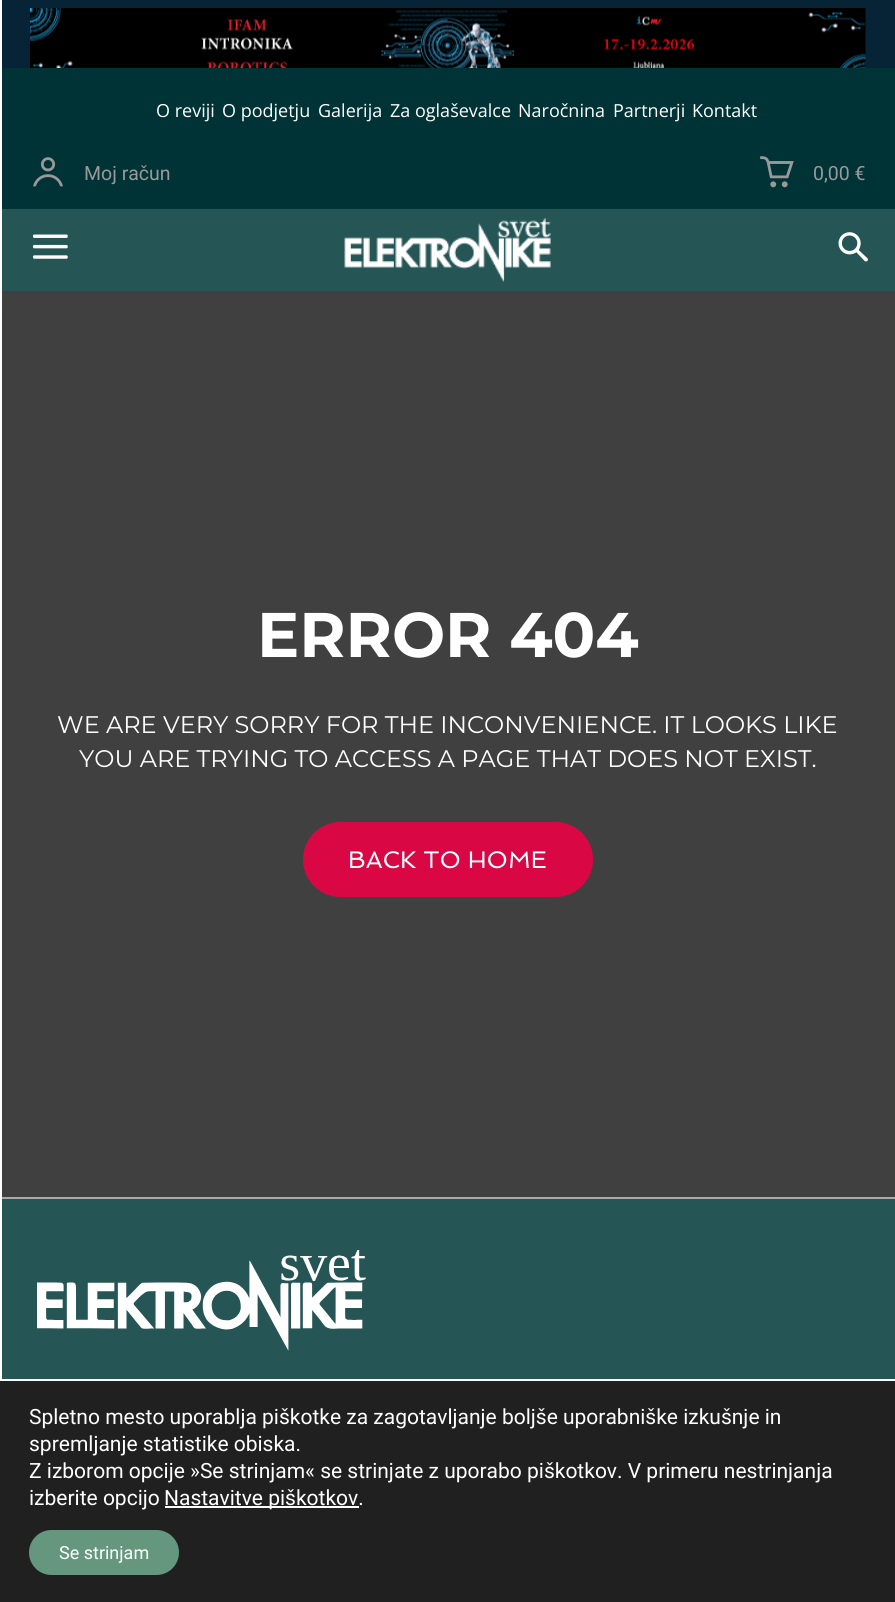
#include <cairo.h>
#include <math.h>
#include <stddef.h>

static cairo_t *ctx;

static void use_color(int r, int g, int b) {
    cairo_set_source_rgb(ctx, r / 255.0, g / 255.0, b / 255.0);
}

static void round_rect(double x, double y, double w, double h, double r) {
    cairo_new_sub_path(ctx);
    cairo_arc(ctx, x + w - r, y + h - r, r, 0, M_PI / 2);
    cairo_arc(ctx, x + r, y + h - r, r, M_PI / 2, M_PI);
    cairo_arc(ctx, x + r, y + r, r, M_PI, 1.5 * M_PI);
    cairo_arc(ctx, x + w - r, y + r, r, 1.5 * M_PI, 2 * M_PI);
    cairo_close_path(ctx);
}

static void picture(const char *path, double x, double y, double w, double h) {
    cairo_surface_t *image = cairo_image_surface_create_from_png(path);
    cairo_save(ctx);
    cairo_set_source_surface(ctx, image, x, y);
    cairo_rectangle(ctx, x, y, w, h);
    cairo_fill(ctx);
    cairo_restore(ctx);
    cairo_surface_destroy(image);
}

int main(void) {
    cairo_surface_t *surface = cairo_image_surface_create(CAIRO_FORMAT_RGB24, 895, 1602);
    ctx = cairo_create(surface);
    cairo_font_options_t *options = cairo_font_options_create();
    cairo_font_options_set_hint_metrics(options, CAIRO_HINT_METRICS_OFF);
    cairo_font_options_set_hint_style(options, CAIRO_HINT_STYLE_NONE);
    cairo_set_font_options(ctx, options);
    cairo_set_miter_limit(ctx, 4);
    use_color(255, 255, 255);
    cairo_paint(ctx);
    use_color(6, 36, 53);
    cairo_rectangle(ctx, 2, 0, 893, 68);
    cairo_fill(ctx);
    picture("img1.png", 30, 8, 836, 60);
    use_color(0, 51, 53);
    cairo_rectangle(ctx, 2, 68, 893, 141);
    cairo_fill(ctx);
    cairo_select_font_face(ctx, "Open Sans", CAIRO_FONT_SLANT_NORMAL, CAIRO_FONT_WEIGHT_NORMAL);
    cairo_set_font_size(ctx, 18);
    use_color(255, 255, 255);
    cairo_move_to(ctx, 156, 117);
    cairo_show_text(ctx, "O reviji");
    cairo_move_to(ctx, 222, 117);
    cairo_show_text(ctx, "O podjetju");
    cairo_move_to(ctx, 318, 117);
    cairo_show_text(ctx, "Galerija");
    cairo_move_to(ctx, 390, 117);
    cairo_show_text(ctx, "Za oglaševalce");
    cairo_move_to(ctx, 518, 117);
    cairo_show_text(ctx, "Naročnina");
    cairo_move_to(ctx, 613, 117);
    cairo_show_text(ctx, "Partnerji");
    cairo_move_to(ctx, 692, 117);
    cairo_show_text(ctx, "Kontakt");
    picture("img2.png", 33, 157, 30, 30);
    cairo_select_font_face(ctx, "Roboto", CAIRO_FONT_SLANT_NORMAL, CAIRO_FONT_WEIGHT_NORMAL);
    cairo_set_font_size(ctx, 19.5);
    use_color(153, 153, 153);
    cairo_move_to(ctx, 84, 180);
    cairo_show_text(ctx, "Moj račun");
    picture("img3.png", 760, 156, 34, 32);
    cairo_move_to(ctx, 813, 180);
    cairo_show_text(ctx, "0,00 €");
    use_color(37, 85, 85);
    cairo_rectangle(ctx, 2, 209, 893, 82);
    cairo_fill(ctx);
    picture("img4.png", 33, 234, 35, 25);
    picture("img5.png", 344, 218, 207, 65);
    picture("img6.png", 838, 232, 30, 30);
    use_color(64, 64, 64);
    cairo_rectangle(ctx, 2, 291, 893, 906);
    cairo_fill(ctx);
    cairo_select_font_face(ctx, "Montserrat", CAIRO_FONT_SLANT_NORMAL, CAIRO_FONT_WEIGHT_BOLD);
    cairo_set_font_size(ctx, 63);
    use_color(255, 255, 255);
    cairo_move_to(ctx, 257, 657);
    cairo_show_text(ctx, "ERROR 404");
    cairo_select_font_face(ctx, "Montserrat", CAIRO_FONT_SLANT_NORMAL, CAIRO_FONT_WEIGHT_NORMAL);
    cairo_set_font_size(ctx, 24);
    cairo_move_to(ctx, 57, 733);
    cairo_show_text(ctx, "WE ARE VERY SORRY FOR THE INCONVENIENCE. IT LOOKS LIKE");
    cairo_move_to(ctx, 79, 767);
    cairo_show_text(ctx, "YOU ARE TRYING TO ACCESS A PAGE THAT DOES NOT EXIST.");
    use_color(217, 8, 68);
    round_rect(303, 822, 290, 75, 37.5);
    cairo_fill(ctx);
    cairo_select_font_face(ctx, "Spinnaker", CAIRO_FONT_SLANT_NORMAL, CAIRO_FONT_WEIGHT_NORMAL);
    use_color(255, 255, 255);
    cairo_move_to(ctx, 348, 868);
    cairo_show_text(ctx, "BACK TO HOME");
    use_color(37, 85, 85);
    cairo_rectangle(ctx, 2, 1199, 893, 180);
    cairo_fill(ctx);
    use_color(170, 170, 170);
    cairo_rectangle(ctx, 2, 1197, 893, 2);
    cairo_fill(ctx);
    picture("img7.png", 37, 1250, 329, 101);
    use_color(32, 32, 32);
    cairo_rectangle(ctx, 0, 1381, 895, 221);
    cairo_fill(ctx);
    cairo_select_font_face(ctx, "Roboto", CAIRO_FONT_SLANT_NORMAL, CAIRO_FONT_WEIGHT_NORMAL);
    cairo_set_font_size(ctx, 21);
    use_color(255, 255, 255);
    cairo_move_to(ctx, 29, 1424);
    cairo_show_text(ctx, "Spletno mesto uporablja piškotke za zagotavljanje boljše uporabniške izkušnje in");
    cairo_move_to(ctx, 29, 1451);
    cairo_show_text(ctx, "spremljanje statistike obiska.");
    cairo_move_to(ctx, 29, 1478);
    cairo_show_text(ctx, "Z izborom opcije »Se strinjam« se strinjate z uporabo piškotkov. V primeru nestrinjanja");
    cairo_move_to(ctx, 29, 1505);
    cairo_show_text(ctx, "izberite opcijo");
    cairo_rectangle(ctx, 165, 1506, 194, 2);
    cairo_fill(ctx);
    cairo_move_to(ctx, 164, 1505);
    cairo_show_text(ctx, "Nastavitve piškotkov.");
    use_color(100, 151, 125);
    round_rect(29, 1530, 150, 45, 22.5);
    cairo_fill(ctx);
    cairo_set_font_size(ctx, 18);
    use_color(255, 255, 255);
    cairo_move_to(ctx, 59, 1559);
    cairo_show_text(ctx, "Se strinjam");
    cairo_surface_write_to_png(surface, "result.png");
    cairo_font_options_destroy(options);
    cairo_destroy(ctx);
    cairo_surface_destroy(surface);
    return 0;
}
